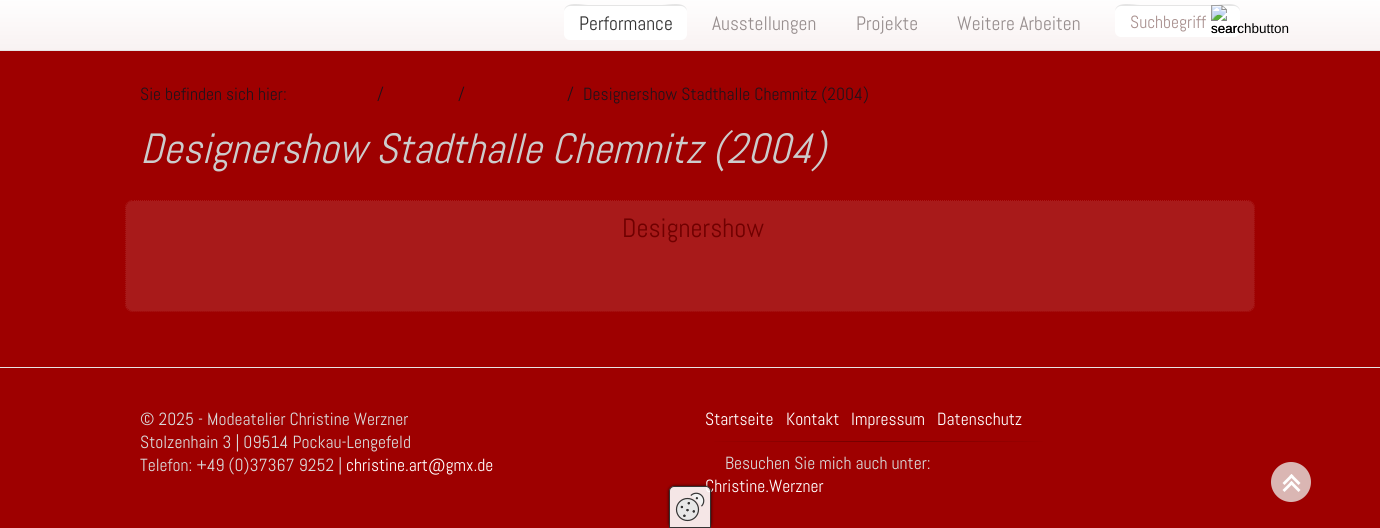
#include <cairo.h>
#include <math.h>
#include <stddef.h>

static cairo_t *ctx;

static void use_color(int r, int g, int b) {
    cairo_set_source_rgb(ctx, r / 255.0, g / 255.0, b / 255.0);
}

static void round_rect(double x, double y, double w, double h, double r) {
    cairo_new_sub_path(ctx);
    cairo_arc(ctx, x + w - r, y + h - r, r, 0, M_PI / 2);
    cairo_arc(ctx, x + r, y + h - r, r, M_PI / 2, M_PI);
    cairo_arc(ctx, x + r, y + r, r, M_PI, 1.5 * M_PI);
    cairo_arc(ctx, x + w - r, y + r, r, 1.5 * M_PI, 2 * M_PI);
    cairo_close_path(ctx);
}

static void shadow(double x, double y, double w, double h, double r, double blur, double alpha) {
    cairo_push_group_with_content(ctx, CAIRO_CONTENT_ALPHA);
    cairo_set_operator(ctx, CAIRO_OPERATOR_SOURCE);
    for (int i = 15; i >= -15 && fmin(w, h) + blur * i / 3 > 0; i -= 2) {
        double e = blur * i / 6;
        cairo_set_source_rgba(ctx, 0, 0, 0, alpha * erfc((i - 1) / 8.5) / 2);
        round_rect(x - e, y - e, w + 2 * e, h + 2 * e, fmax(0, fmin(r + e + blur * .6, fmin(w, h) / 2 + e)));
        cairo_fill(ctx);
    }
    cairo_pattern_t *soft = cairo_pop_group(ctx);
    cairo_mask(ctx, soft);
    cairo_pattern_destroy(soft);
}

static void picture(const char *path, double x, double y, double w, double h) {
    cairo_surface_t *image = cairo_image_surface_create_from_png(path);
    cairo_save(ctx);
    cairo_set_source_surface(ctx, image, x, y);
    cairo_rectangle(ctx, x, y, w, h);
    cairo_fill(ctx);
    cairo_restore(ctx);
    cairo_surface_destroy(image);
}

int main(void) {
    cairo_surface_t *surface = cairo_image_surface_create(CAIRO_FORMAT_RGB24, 1380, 528);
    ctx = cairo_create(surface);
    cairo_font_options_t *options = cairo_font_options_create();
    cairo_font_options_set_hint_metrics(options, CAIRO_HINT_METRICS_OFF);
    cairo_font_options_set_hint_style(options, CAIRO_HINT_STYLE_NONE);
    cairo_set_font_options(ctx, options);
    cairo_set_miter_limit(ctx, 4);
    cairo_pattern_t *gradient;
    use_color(158, 0, 0);
    cairo_paint(ctx);
    gradient = cairo_pattern_create_linear(690, -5, 690, 50);
    cairo_pattern_add_color_stop_rgba(gradient, 0, 1, 1, 1, 1);
    cairo_pattern_add_color_stop_rgba(gradient, 1, 0.976, 0.949, 0.949, 1);
    cairo_set_source(ctx, gradient);
    cairo_pattern_destroy(gradient);
    cairo_rectangle(ctx, 0, 0, 1380, 50);
    cairo_fill(ctx);
    use_color(230, 228, 228);
    cairo_rectangle(ctx, 0, 50, 1380, 1);
    cairo_fill(ctx);
    use_color(255, 255, 255);
    round_rect(564, 5, 123, 35, 6);
    cairo_fill(ctx);
    use_color(229, 229, 229);
    cairo_new_path(ctx);
    cairo_move_to(ctx, 570, 6);
    cairo_line_to(ctx, 681, 6);
    cairo_curve_to(ctx, 684, 6, 687, 9, 687, 12);
    cairo_curve_to(ctx, 687, 0, 668, 5, 662, 5);
    cairo_line_to(ctx, 588, 5);
    cairo_curve_to(ctx, 583, 5, 564, 0, 564, 12);
    cairo_curve_to(ctx, 564, 9, 567, 6, 570, 6);
    cairo_close_path(ctx);
    cairo_fill(ctx);
    cairo_select_font_face(ctx, "Abel", CAIRO_FONT_SLANT_NORMAL, CAIRO_FONT_WEIGHT_NORMAL);
    cairo_set_font_size(ctx, 19.5);
    use_color(51, 51, 51);
    cairo_move_to(ctx, 579, 30);
    cairo_show_text(ctx, "Performance");
    use_color(152, 143, 143);
    cairo_move_to(ctx, 712, 30);
    cairo_show_text(ctx, "Ausstellungen");
    cairo_move_to(ctx, 856, 30);
    cairo_show_text(ctx, "Projekte");
    cairo_move_to(ctx, 957, 30);
    cairo_show_text(ctx, "Weitere Arbeiten");
    use_color(255, 255, 255);
    round_rect(1115, 5, 125, 32, 6);
    cairo_fill(ctx);
    use_color(229, 229, 229);
    cairo_new_path(ctx);
    cairo_move_to(ctx, 1121, 6);
    cairo_line_to(ctx, 1234, 6);
    cairo_curve_to(ctx, 1237, 6, 1240, 9, 1240, 12);
    cairo_curve_to(ctx, 1240, 0, 1221, 5, 1215, 5);
    cairo_line_to(ctx, 1140, 5);
    cairo_curve_to(ctx, 1134, 5, 1115, 0, 1115, 12);
    cairo_curve_to(ctx, 1115, 9, 1118, 6, 1121, 6);
    cairo_close_path(ctx);
    cairo_fill(ctx);
    cairo_set_font_size(ctx, 17.6);
    use_color(169, 145, 143);
    cairo_move_to(ctx, 1130, 28);
    cairo_show_text(ctx, "Suchbegriff");
    picture("img1.png", 1211, 5, 29, 28);
    cairo_select_font_face(ctx, "Liberation Sans", CAIRO_FONT_SLANT_NORMAL, CAIRO_FONT_WEIGHT_NORMAL);
    cairo_set_font_size(ctx, 13.5);
    use_color(0, 0, 0);
    cairo_move_to(ctx, 1211, 33);
    cairo_show_text(ctx, "searchbutton");
    cairo_select_font_face(ctx, "Abel", CAIRO_FONT_SLANT_NORMAL, CAIRO_FONT_WEIGHT_NORMAL);
    cairo_set_font_size(ctx, 17.6);
    use_color(35, 17, 25);
    cairo_move_to(ctx, 140, 100);
    cairo_show_text(ctx, "Sie befinden sich hier:");
    cairo_move_to(ctx, 377, 100);
    cairo_show_text(ctx, "/");
    cairo_move_to(ctx, 458, 100);
    cairo_show_text(ctx, "/");
    cairo_move_to(ctx, 567, 100);
    cairo_show_text(ctx, "/");
    cairo_move_to(ctx, 583, 100);
    cairo_show_text(ctx, "Designershow Stadthalle Chemnitz (2004)");
    cairo_select_font_face(ctx, "Abel", CAIRO_FONT_SLANT_ITALIC, CAIRO_FONT_WEIGHT_NORMAL);
    cairo_set_font_size(ctx, 42.25);
    use_color(204, 204, 204);
    cairo_move_to(ctx, 140, 163);
    cairo_show_text(ctx, "Designershow Stadthalle Chemnitz (2004)");
    use_color(168, 26, 26);
    round_rect(125, 200, 1130, 112, 8);
    cairo_fill(ctx);
    cairo_new_path(ctx);
    cairo_move_to(ctx, 133, 200.5);
    cairo_line_to(ctx, 1247, 200.5);
    cairo_curve_to(ctx, 1251, 200.5, 1254.5, 204, 1254.5, 208);
    cairo_line_to(ctx, 1254.5, 304);
    cairo_curve_to(ctx, 1254.5, 308, 1251, 311.5, 1247, 311.5);
    cairo_line_to(ctx, 133, 311.5);
    cairo_curve_to(ctx, 129, 311.5, 125.5, 308, 125.5, 304);
    cairo_line_to(ctx, 125.5, 208);
    cairo_curve_to(ctx, 125.5, 204, 129, 200.5, 133, 200.5);
    cairo_close_path(ctx);
    use_color(158, 0, 0);
    cairo_set_line_width(ctx, 1);
    cairo_set_dash(ctx, (double[]){1, 1}, 2, 0);
    cairo_stroke(ctx);
    cairo_select_font_face(ctx, "Abel", CAIRO_FONT_SLANT_NORMAL, CAIRO_FONT_WEIGHT_NORMAL);
    cairo_set_font_size(ctx, 26.5);
    use_color(112, 0, 0);
    cairo_move_to(ctx, 622, 237);
    cairo_show_text(ctx, "Designershow");
    use_color(218, 182, 179);
    cairo_new_path(ctx);
    cairo_arc(ctx, 1291, 482, 20, 0, 2 * M_PI);
    cairo_fill(ctx);
    use_color(255, 255, 255);
    cairo_new_path(ctx);
    cairo_move_to(ctx, 1284.5, 485);
    cairo_line_to(ctx, 1282.5, 483);
    cairo_line_to(ctx, 1291.5, 474);
    cairo_line_to(ctx, 1293.5, 476);
    cairo_close_path(ctx);
    cairo_fill(ctx);
    cairo_new_path(ctx);
    cairo_move_to(ctx, 1298.5, 485);
    cairo_line_to(ctx, 1289.5, 476);
    cairo_line_to(ctx, 1291.5, 474);
    cairo_line_to(ctx, 1300.5, 483);
    cairo_close_path(ctx);
    cairo_fill(ctx);
    cairo_new_path(ctx);
    cairo_move_to(ctx, 1284.5, 492);
    cairo_line_to(ctx, 1282.5, 490);
    cairo_line_to(ctx, 1291.5, 481);
    cairo_line_to(ctx, 1293.5, 483);
    cairo_close_path(ctx);
    cairo_fill(ctx);
    cairo_new_path(ctx);
    cairo_move_to(ctx, 1298.5, 492);
    cairo_line_to(ctx, 1289.5, 483);
    cairo_line_to(ctx, 1291.5, 481);
    cairo_line_to(ctx, 1300.5, 490);
    cairo_close_path(ctx);
    cairo_fill(ctx);
    use_color(230, 228, 228);
    cairo_rectangle(ctx, 0, 367, 1380, 1);
    cairo_fill(ctx);
    cairo_set_font_size(ctx, 17.6);
    use_color(217, 217, 217);
    cairo_move_to(ctx, 140, 425);
    cairo_show_text(ctx, "© 2025 - Modeatelier Christine Werzner");
    cairo_move_to(ctx, 140, 448);
    cairo_show_text(ctx, "Stolzenhain 3 | 09514 Pockau-Lengefeld");
    cairo_move_to(ctx, 140, 471);
    cairo_show_text(ctx, "Telefon: +49 (0)37367 9252 |");
    use_color(255, 255, 255);
    cairo_move_to(ctx, 346, 471);
    cairo_show_text(ctx, "christine.art@gmx.de");
    cairo_move_to(ctx, 705, 425);
    cairo_show_text(ctx, "Startseite");
    cairo_move_to(ctx, 786, 425);
    cairo_show_text(ctx, "Kontakt");
    cairo_move_to(ctx, 851, 425);
    cairo_show_text(ctx, "Impressum");
    cairo_move_to(ctx, 937, 425);
    cairo_show_text(ctx, "Datenschutz");
    gradient = cairo_pattern_create_linear(705, 442, 1052, 442);
    cairo_pattern_add_color_stop_rgba(gradient, 0, 0.62, 0, 0, 1);
    cairo_pattern_add_color_stop_rgba(gradient, 0.5, 0.439, 0, 0, 1);
    cairo_pattern_add_color_stop_rgba(gradient, 1, 0.62, 0, 0, 1);
    cairo_set_source(ctx, gradient);
    cairo_pattern_destroy(gradient);
    cairo_rectangle(ctx, 714, 441, 329, 1);
    cairo_fill(ctx);
    use_color(217, 217, 217);
    cairo_move_to(ctx, 725, 469);
    cairo_show_text(ctx, "Besuchen Sie mich auch unter:");
    use_color(255, 255, 255);
    cairo_move_to(ctx, 705, 492);
    cairo_show_text(ctx, "Christine.Werzner");
    cairo_save(ctx);
    cairo_set_fill_rule(ctx, CAIRO_FILL_RULE_EVEN_ODD);
    cairo_new_path(ctx);
    cairo_move_to(ctx, 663, 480);
    cairo_line_to(ctx, 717, 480);
    cairo_line_to(ctx, 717, 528);
    cairo_line_to(ctx, 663, 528);
    cairo_close_path(ctx);
    cairo_move_to(ctx, 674, 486);
    cairo_line_to(ctx, 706, 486);
    cairo_curve_to(ctx, 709, 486, 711, 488, 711, 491);
    cairo_line_to(ctx, 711, 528);
    cairo_line_to(ctx, 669, 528);
    cairo_line_to(ctx, 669, 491);
    cairo_curve_to(ctx, 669, 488, 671, 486, 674, 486);
    cairo_close_path(ctx);
    cairo_clip(ctx);
    use_color(0, 0, 0);
    shadow(669, 486, 42, 42, 5, 1.5, 0.8);
    cairo_restore(ctx);
    cairo_set_source_rgba(ctx, 1, 1, 1, 0.9);
    cairo_new_path(ctx);
    cairo_move_to(ctx, 674, 486.5);
    cairo_line_to(ctx, 706, 486.5);
    cairo_curve_to(ctx, 708.5, 486.5, 710.5, 488.5, 710.5, 491);
    cairo_line_to(ctx, 710.5, 527.5);
    cairo_line_to(ctx, 669.5, 527.5);
    cairo_line_to(ctx, 669.5, 491);
    cairo_curve_to(ctx, 669.5, 488.5, 671.5, 486.5, 674, 486.5);
    cairo_close_path(ctx);
    cairo_fill_preserve(ctx);
    use_color(51, 51, 51);
    cairo_set_dash(ctx, NULL, 0, 0);
    cairo_stroke(ctx);
    picture("img2.png", 675, 492, 30, 30);
    cairo_surface_write_to_png(surface, "result.png");
    cairo_font_options_destroy(options);
    cairo_destroy(ctx);
    cairo_surface_destroy(surface);
    return 0;
}
